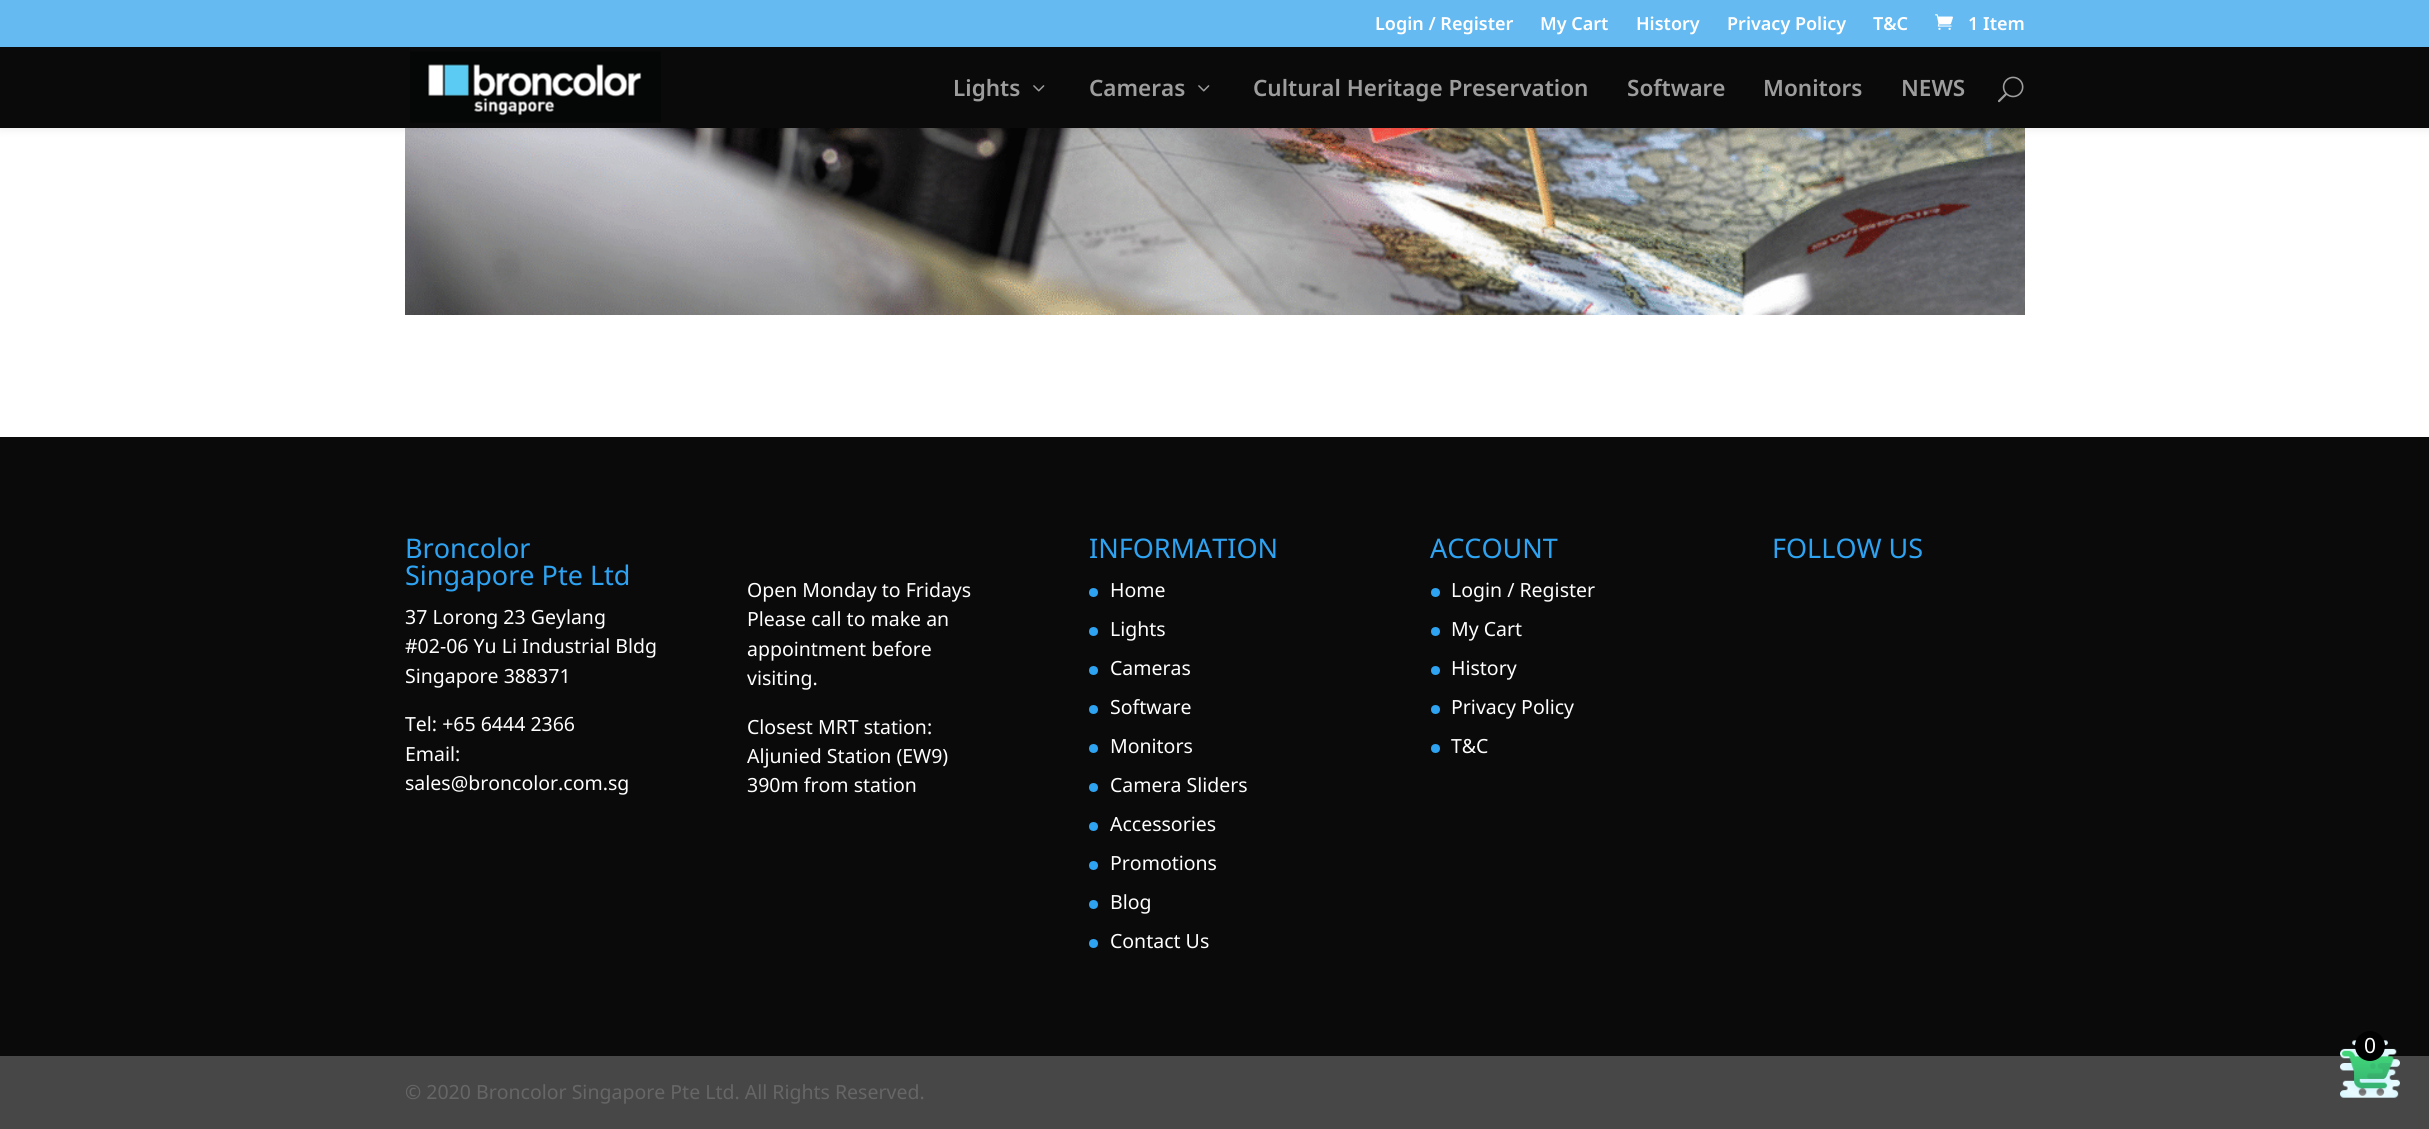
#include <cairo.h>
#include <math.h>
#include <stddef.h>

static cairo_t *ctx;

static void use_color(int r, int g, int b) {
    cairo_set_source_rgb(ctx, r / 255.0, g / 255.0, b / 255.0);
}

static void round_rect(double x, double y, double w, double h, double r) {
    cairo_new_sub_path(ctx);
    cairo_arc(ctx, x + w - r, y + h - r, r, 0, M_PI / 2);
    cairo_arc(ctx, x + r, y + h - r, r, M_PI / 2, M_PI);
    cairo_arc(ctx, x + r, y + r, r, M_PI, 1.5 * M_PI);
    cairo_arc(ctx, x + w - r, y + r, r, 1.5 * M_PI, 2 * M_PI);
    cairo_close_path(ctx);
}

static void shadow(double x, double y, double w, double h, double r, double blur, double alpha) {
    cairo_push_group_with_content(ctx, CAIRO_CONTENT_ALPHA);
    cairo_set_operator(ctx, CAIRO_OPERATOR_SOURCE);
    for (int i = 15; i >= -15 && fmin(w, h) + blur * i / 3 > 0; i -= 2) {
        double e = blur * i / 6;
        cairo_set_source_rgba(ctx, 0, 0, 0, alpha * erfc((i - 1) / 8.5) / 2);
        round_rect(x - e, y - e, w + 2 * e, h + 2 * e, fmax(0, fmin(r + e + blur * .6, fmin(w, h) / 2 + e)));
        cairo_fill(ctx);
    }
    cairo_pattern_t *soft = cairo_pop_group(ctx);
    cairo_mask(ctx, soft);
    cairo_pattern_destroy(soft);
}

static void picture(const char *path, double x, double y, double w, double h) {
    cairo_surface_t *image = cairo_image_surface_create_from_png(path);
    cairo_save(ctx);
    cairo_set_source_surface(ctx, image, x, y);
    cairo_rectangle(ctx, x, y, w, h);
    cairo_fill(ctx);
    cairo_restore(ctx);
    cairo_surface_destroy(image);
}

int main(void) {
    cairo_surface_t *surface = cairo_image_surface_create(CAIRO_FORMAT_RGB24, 2429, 1129);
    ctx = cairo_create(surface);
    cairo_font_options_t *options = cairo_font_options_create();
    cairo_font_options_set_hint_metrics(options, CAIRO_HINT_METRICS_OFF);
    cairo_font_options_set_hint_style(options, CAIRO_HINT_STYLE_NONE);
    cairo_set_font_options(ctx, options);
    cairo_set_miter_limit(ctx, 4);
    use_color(255, 255, 255);
    cairo_paint(ctx);
    picture("img5.png", 405, 128, 1620, 187);
    use_color(0, 0, 0);
    shadow(0, 47, 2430, 81, 0, 5, 0.1);
    use_color(101, 186, 242);
    cairo_rectangle(ctx, 0, 0, 2429, 47);
    cairo_fill(ctx);
    cairo_select_font_face(ctx, "Noto Sans SemiBold", CAIRO_FONT_SLANT_NORMAL, CAIRO_FONT_WEIGHT_NORMAL);
    cairo_set_font_size(ctx, 18);
    use_color(255, 255, 255);
    cairo_move_to(ctx, 1375, 30);
    cairo_show_text(ctx, "Login / Register");
    cairo_move_to(ctx, 1540, 30);
    cairo_show_text(ctx, "My Cart");
    cairo_move_to(ctx, 1636, 30);
    cairo_show_text(ctx, "History");
    cairo_move_to(ctx, 1727, 30);
    cairo_show_text(ctx, "Privacy Policy");
    cairo_move_to(ctx, 1873, 30);
    cairo_show_text(ctx, "T&C");
    picture("img1.png", 1935, 14, 18, 16);
    cairo_move_to(ctx, 1968, 30);
    cairo_show_text(ctx, "1 Item");
    use_color(10, 10, 10);
    cairo_rectangle(ctx, 0, 47, 2429, 81);
    cairo_fill(ctx);
    picture("img2.png", 410, 51, 251, 72);
    cairo_set_font_size(ctx, 22.5);
    use_color(157, 157, 157);
    cairo_move_to(ctx, 953, 96);
    cairo_show_text(ctx, "Lights");
    picture("img3.png", 1033, 85, 12, 7);
    cairo_move_to(ctx, 1089, 96);
    cairo_show_text(ctx, "Cameras");
    picture("img3.png", 1198, 85, 12, 7);
    cairo_move_to(ctx, 1253, 96);
    cairo_show_text(ctx, "Cultural Heritage Preservation");
    cairo_move_to(ctx, 1627, 96);
    cairo_show_text(ctx, "Software");
    cairo_move_to(ctx, 1763, 96);
    cairo_show_text(ctx, "Monitors");
    cairo_move_to(ctx, 1901, 96);
    cairo_show_text(ctx, "NEWS");
    picture("img4.png", 1998, 76, 26, 27);
    use_color(10, 10, 10);
    cairo_rectangle(ctx, 0, 437, 2429, 619);
    cairo_fill(ctx);
    cairo_select_font_face(ctx, "Noto Sans", CAIRO_FONT_SLANT_NORMAL, CAIRO_FONT_WEIGHT_NORMAL);
    cairo_set_font_size(ctx, 27);
    use_color(46, 163, 242);
    cairo_move_to(ctx, 405, 558);
    cairo_show_text(ctx, "Broncolor");
    cairo_move_to(ctx, 405, 585);
    cairo_show_text(ctx, "Singapore Pte Ltd");
    cairo_set_font_size(ctx, 19.5);
    use_color(255, 255, 255);
    cairo_move_to(ctx, 405, 624);
    cairo_show_text(ctx, "37 Lorong 23 Geylang");
    cairo_move_to(ctx, 405, 653);
    cairo_show_text(ctx, "#02-06 Yu Li Industrial Bldg");
    cairo_move_to(ctx, 405, 683);
    cairo_show_text(ctx, "Singapore 388371");
    cairo_move_to(ctx, 405, 731);
    cairo_show_text(ctx, "Tel: +65 6444 2366");
    cairo_move_to(ctx, 405, 761);
    cairo_show_text(ctx, "Email:");
    cairo_move_to(ctx, 405, 790);
    cairo_show_text(ctx, "sales@broncolor.com.sg");
    cairo_set_font_size(ctx, 27);
    use_color(46, 163, 242);
    cairo_move_to(ctx, 1089, 558);
    cairo_show_text(ctx, "INFORMATION");
    cairo_new_path(ctx);
    cairo_arc(ctx, 1093.5, 592.5, 4.5, 0, 2 * M_PI);
    cairo_fill(ctx);
    cairo_set_font_size(ctx, 19.5);
    use_color(255, 255, 255);
    cairo_move_to(ctx, 1110, 597);
    cairo_show_text(ctx, "Home");
    use_color(46, 163, 242);
    cairo_new_path(ctx);
    cairo_arc(ctx, 1093.5, 631.5, 4.5, 0, 2 * M_PI);
    cairo_fill(ctx);
    use_color(255, 255, 255);
    cairo_move_to(ctx, 1110, 636);
    cairo_show_text(ctx, "Lights");
    use_color(46, 163, 242);
    cairo_new_path(ctx);
    cairo_arc(ctx, 1093.5, 670.5, 4.5, 0, 2 * M_PI);
    cairo_fill(ctx);
    use_color(255, 255, 255);
    cairo_move_to(ctx, 1110, 675);
    cairo_show_text(ctx, "Cameras");
    use_color(46, 163, 242);
    cairo_new_path(ctx);
    cairo_arc(ctx, 1093.5, 709.5, 4.5, 0, 2 * M_PI);
    cairo_fill(ctx);
    use_color(255, 255, 255);
    cairo_move_to(ctx, 1110, 714);
    cairo_show_text(ctx, "Software");
    use_color(46, 163, 242);
    cairo_new_path(ctx);
    cairo_arc(ctx, 1093.5, 748.5, 4.5, 0, 2 * M_PI);
    cairo_fill(ctx);
    use_color(255, 255, 255);
    cairo_move_to(ctx, 1110, 753);
    cairo_show_text(ctx, "Monitors");
    use_color(46, 163, 242);
    cairo_new_path(ctx);
    cairo_arc(ctx, 1093.5, 787.5, 4.5, 0, 2 * M_PI);
    cairo_fill(ctx);
    use_color(255, 255, 255);
    cairo_move_to(ctx, 1110, 792);
    cairo_show_text(ctx, "Camera Sliders");
    use_color(46, 163, 242);
    cairo_new_path(ctx);
    cairo_arc(ctx, 1093.5, 826.5, 4.5, 0, 2 * M_PI);
    cairo_fill(ctx);
    use_color(255, 255, 255);
    cairo_move_to(ctx, 1110, 831);
    cairo_show_text(ctx, "Accessories");
    use_color(46, 163, 242);
    cairo_new_path(ctx);
    cairo_arc(ctx, 1093.5, 865.5, 4.5, 0, 2 * M_PI);
    cairo_fill(ctx);
    use_color(255, 255, 255);
    cairo_move_to(ctx, 1110, 870);
    cairo_show_text(ctx, "Promotions");
    use_color(46, 163, 242);
    cairo_new_path(ctx);
    cairo_arc(ctx, 1093.5, 904.5, 4.5, 0, 2 * M_PI);
    cairo_fill(ctx);
    use_color(255, 255, 255);
    cairo_move_to(ctx, 1110, 909);
    cairo_show_text(ctx, "Blog");
    use_color(46, 163, 242);
    cairo_new_path(ctx);
    cairo_arc(ctx, 1093.5, 943.5, 4.5, 0, 2 * M_PI);
    cairo_fill(ctx);
    use_color(255, 255, 255);
    cairo_move_to(ctx, 1110, 948);
    cairo_show_text(ctx, "Contact Us");
    cairo_set_font_size(ctx, 27);
    use_color(46, 163, 242);
    cairo_move_to(ctx, 1430, 558);
    cairo_show_text(ctx, "ACCOUNT");
    cairo_new_path(ctx);
    cairo_arc(ctx, 1435.5, 592.5, 4.5, 0, 2 * M_PI);
    cairo_fill(ctx);
    cairo_set_font_size(ctx, 19.5);
    use_color(255, 255, 255);
    cairo_move_to(ctx, 1451, 597);
    cairo_show_text(ctx, "Login / Register");
    use_color(46, 163, 242);
    cairo_new_path(ctx);
    cairo_arc(ctx, 1435.5, 631.5, 4.5, 0, 2 * M_PI);
    cairo_fill(ctx);
    use_color(255, 255, 255);
    cairo_move_to(ctx, 1451, 636);
    cairo_show_text(ctx, "My Cart");
    use_color(46, 163, 242);
    cairo_new_path(ctx);
    cairo_arc(ctx, 1435.5, 670.5, 4.5, 0, 2 * M_PI);
    cairo_fill(ctx);
    use_color(255, 255, 255);
    cairo_move_to(ctx, 1451, 675);
    cairo_show_text(ctx, "History");
    use_color(46, 163, 242);
    cairo_new_path(ctx);
    cairo_arc(ctx, 1435.5, 709.5, 4.5, 0, 2 * M_PI);
    cairo_fill(ctx);
    use_color(255, 255, 255);
    cairo_move_to(ctx, 1451, 714);
    cairo_show_text(ctx, "Privacy Policy");
    use_color(46, 163, 242);
    cairo_new_path(ctx);
    cairo_arc(ctx, 1435.5, 748.5, 4.5, 0, 2 * M_PI);
    cairo_fill(ctx);
    use_color(255, 255, 255);
    cairo_move_to(ctx, 1451, 753);
    cairo_show_text(ctx, "T&C");
    cairo_set_font_size(ctx, 27);
    use_color(46, 163, 242);
    cairo_move_to(ctx, 1772, 558);
    cairo_show_text(ctx, "FOLLOW US");
    cairo_set_font_size(ctx, 19.5);
    use_color(255, 255, 255);
    cairo_move_to(ctx, 747, 597);
    cairo_show_text(ctx, "Open Monday to Fridays");
    cairo_move_to(ctx, 747, 626);
    cairo_show_text(ctx, "Please call to make an");
    cairo_move_to(ctx, 747, 656);
    cairo_show_text(ctx, "appointment before");
    cairo_move_to(ctx, 747, 685);
    cairo_show_text(ctx, "visiting.");
    cairo_move_to(ctx, 747, 734);
    cairo_show_text(ctx, "Closest MRT station:");
    cairo_move_to(ctx, 747, 763);
    cairo_show_text(ctx, "Aljunied Station (EW9)");
    cairo_move_to(ctx, 747, 792);
    cairo_show_text(ctx, "390m from station");
    use_color(71, 71, 71);
    cairo_rectangle(ctx, 0, 1056, 2429, 73);
    cairo_fill(ctx);
    use_color(102, 102, 102);
    cairo_move_to(ctx, 405, 1099);
    cairo_show_text(ctx, "© 2020 Broncolor Singapore Pte Ltd. All Rights Reserved.");
    picture("img6.png", 2340, 1040, 60, 58);
    use_color(0, 0, 0);
    cairo_arc(ctx, 2370, 1046, 15, 0, 2 * M_PI);
    cairo_fill(ctx);
    cairo_set_font_size(ctx, 21);
    use_color(255, 255, 255);
    cairo_move_to(ctx, 2364, 1053);
    cairo_show_text(ctx, "0");
    cairo_surface_write_to_png(surface, "result.png");
    cairo_font_options_destroy(options);
    cairo_destroy(ctx);
    cairo_surface_destroy(surface);
    return 0;
}
